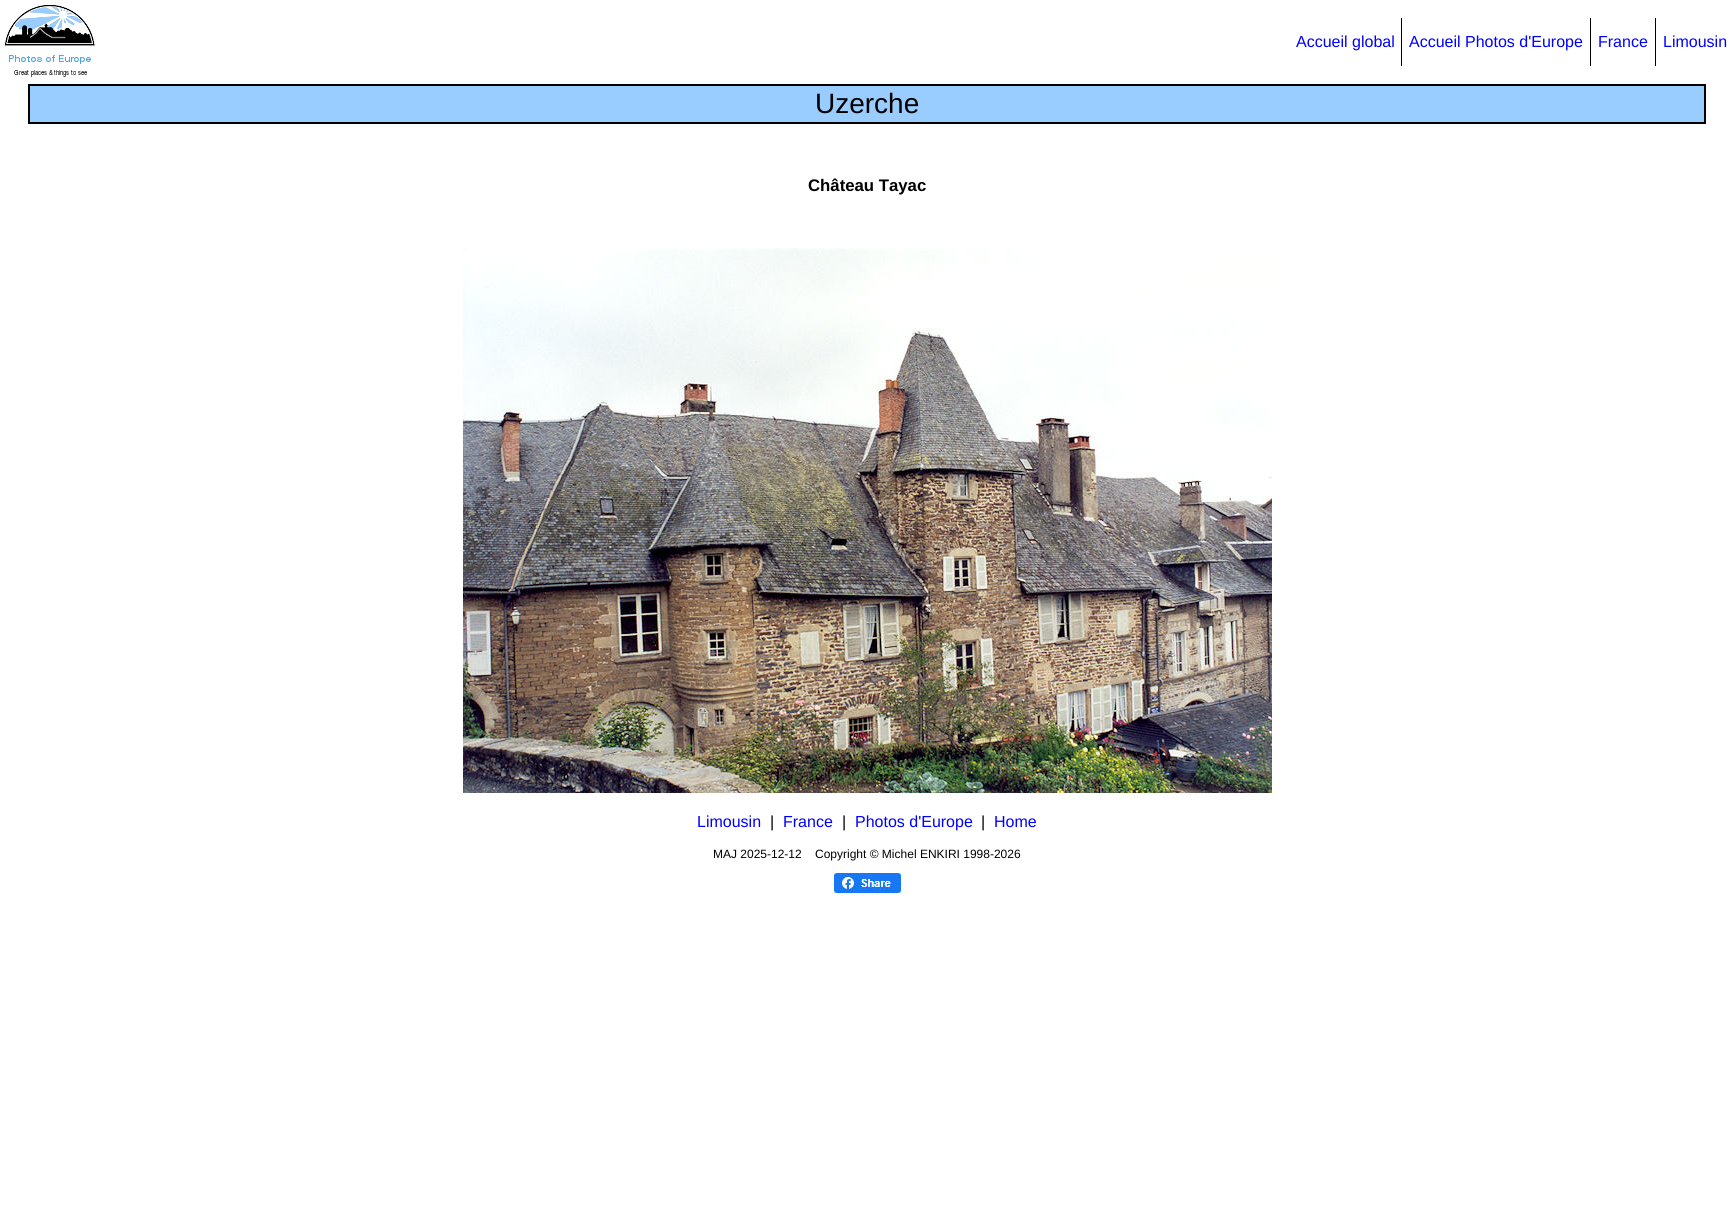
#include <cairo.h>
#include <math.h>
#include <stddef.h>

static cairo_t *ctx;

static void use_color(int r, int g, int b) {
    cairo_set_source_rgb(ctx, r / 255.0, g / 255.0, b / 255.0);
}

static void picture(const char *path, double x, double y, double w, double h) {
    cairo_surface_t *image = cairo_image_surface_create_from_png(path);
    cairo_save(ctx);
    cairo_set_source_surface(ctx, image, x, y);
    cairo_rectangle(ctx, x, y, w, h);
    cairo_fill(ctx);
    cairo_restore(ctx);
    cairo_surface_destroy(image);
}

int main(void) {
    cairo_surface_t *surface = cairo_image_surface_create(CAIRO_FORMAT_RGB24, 1734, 1224);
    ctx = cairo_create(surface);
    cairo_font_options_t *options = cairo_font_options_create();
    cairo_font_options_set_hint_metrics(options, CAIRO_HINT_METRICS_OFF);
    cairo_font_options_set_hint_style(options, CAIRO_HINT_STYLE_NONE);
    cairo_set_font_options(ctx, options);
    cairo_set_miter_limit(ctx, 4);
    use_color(255, 255, 255);
    cairo_paint(ctx);
    picture("img1.png", 4, 5, 91, 72);
    use_color(0, 0, 0);
    cairo_rectangle(ctx, 1401, 18, 1, 48);
    cairo_fill(ctx);
    cairo_select_font_face(ctx, "Liberation Sans", CAIRO_FONT_SLANT_NORMAL, CAIRO_FONT_WEIGHT_NORMAL);
    cairo_set_font_size(ctx, 16);
    use_color(0, 0, 255);
    cairo_move_to(ctx, 1296, 47);
    cairo_show_text(ctx, "Accueil global");
    use_color(0, 0, 0);
    cairo_rectangle(ctx, 1590, 18, 1, 48);
    cairo_fill(ctx);
    use_color(0, 0, 255);
    cairo_move_to(ctx, 1409, 47);
    cairo_show_text(ctx, "Accueil Photos d'Europe");
    use_color(0, 0, 0);
    cairo_rectangle(ctx, 1655, 18, 1, 48);
    cairo_fill(ctx);
    use_color(0, 0, 255);
    cairo_move_to(ctx, 1598, 47);
    cairo_show_text(ctx, "France");
    cairo_move_to(ctx, 1663, 47);
    cairo_show_text(ctx, "Limousin");
    use_color(153, 204, 255);
    cairo_rectangle(ctx, 29, 85, 1676, 38);
    cairo_fill_preserve(ctx);
    use_color(0, 0, 0);
    cairo_stroke(ctx);
    cairo_set_font_size(ctx, 28);
    cairo_move_to(ctx, 815, 113);
    cairo_show_text(ctx, "Uzerche");
    cairo_select_font_face(ctx, "Liberation Sans", CAIRO_FONT_SLANT_NORMAL, CAIRO_FONT_WEIGHT_BOLD);
    cairo_set_font_size(ctx, 16.75);
    cairo_move_to(ctx, 808, 191);
    cairo_show_text(ctx, "Château Tayac");
    picture("img2.png", 463, 248, 809, 545);
    cairo_select_font_face(ctx, "Liberation Sans", CAIRO_FONT_SLANT_NORMAL, CAIRO_FONT_WEIGHT_NORMAL);
    cairo_set_font_size(ctx, 16);
    use_color(0, 0, 255);
    cairo_move_to(ctx, 697, 827);
    cairo_show_text(ctx, "Limousin");
    use_color(0, 0, 0);
    cairo_move_to(ctx, 770, 827);
    cairo_show_text(ctx, "|");
    use_color(0, 0, 255);
    cairo_move_to(ctx, 783, 827);
    cairo_show_text(ctx, "France");
    use_color(0, 0, 0);
    cairo_move_to(ctx, 842, 827);
    cairo_show_text(ctx, "|");
    use_color(0, 0, 255);
    cairo_move_to(ctx, 855, 827);
    cairo_show_text(ctx, "Photos d'Europe");
    use_color(0, 0, 0);
    cairo_move_to(ctx, 981, 827);
    cairo_show_text(ctx, "|");
    use_color(0, 0, 255);
    cairo_move_to(ctx, 994, 827);
    cairo_show_text(ctx, "Home");
    cairo_set_font_size(ctx, 12);
    use_color(0, 0, 0);
    cairo_move_to(ctx, 713, 858);
    cairo_show_text(ctx, "MAJ 2025-12-12");
    cairo_move_to(ctx, 815, 858);
    cairo_show_text(ctx, "Copyright © Michel ENKIRI 1998-2026");
    picture("img3.png", 834, 873, 67, 20);
    cairo_surface_write_to_png(surface, "result.png");
    cairo_font_options_destroy(options);
    cairo_destroy(ctx);
    cairo_surface_destroy(surface);
    return 0;
}
